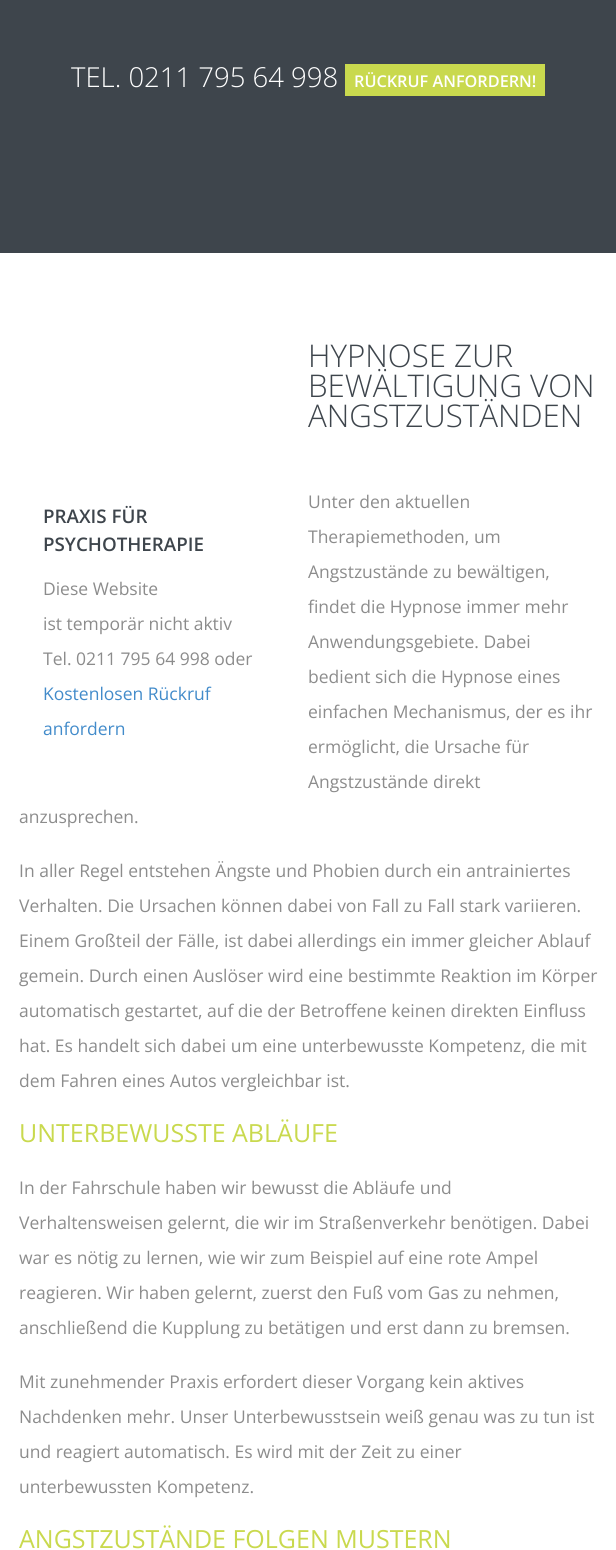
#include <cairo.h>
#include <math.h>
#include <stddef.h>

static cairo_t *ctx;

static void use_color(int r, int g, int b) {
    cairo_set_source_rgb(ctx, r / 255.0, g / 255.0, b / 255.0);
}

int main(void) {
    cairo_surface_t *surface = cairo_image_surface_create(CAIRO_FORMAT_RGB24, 616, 1550);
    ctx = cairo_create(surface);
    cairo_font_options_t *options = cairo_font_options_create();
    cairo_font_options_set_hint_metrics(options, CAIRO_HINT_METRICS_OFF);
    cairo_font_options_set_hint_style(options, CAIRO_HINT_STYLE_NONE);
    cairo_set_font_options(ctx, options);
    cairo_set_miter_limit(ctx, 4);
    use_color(62, 69, 76);
    cairo_paint(ctx);
    cairo_select_font_face(ctx, "Open Sans Light", CAIRO_FONT_SLANT_NORMAL, CAIRO_FONT_WEIGHT_NORMAL);
    cairo_set_font_size(ctx, 27.5);
    use_color(255, 255, 255);
    cairo_move_to(ctx, 71, 87);
    cairo_show_text(ctx, "TEL. 0211 795 64 998");
    use_color(201, 217, 78);
    cairo_rectangle(ctx, 345, 64, 200, 32);
    cairo_fill(ctx);
    cairo_select_font_face(ctx, "Open Sans SemiBold", CAIRO_FONT_SLANT_NORMAL, CAIRO_FONT_WEIGHT_NORMAL);
    cairo_set_font_size(ctx, 16.25);
    use_color(255, 255, 255);
    cairo_move_to(ctx, 354, 87);
    cairo_show_text(ctx, "RÜCKRUF ANFORDERN!");
    cairo_rectangle(ctx, 0, 253, 616, 1297);
    cairo_fill(ctx);
    cairo_select_font_face(ctx, "Open Sans Light", CAIRO_FONT_SLANT_NORMAL, CAIRO_FONT_WEIGHT_NORMAL);
    cairo_set_font_size(ctx, 31.25);
    use_color(62, 69, 76);
    cairo_move_to(ctx, 308, 367);
    cairo_show_text(ctx, "HYPNOSE ZUR");
    cairo_move_to(ctx, 308, 397);
    cairo_show_text(ctx, "BEWÄLTIGUNG VON");
    cairo_move_to(ctx, 308, 427);
    cairo_show_text(ctx, "ANGSTZUSTÄNDEN");
    cairo_select_font_face(ctx, "Open Sans", CAIRO_FONT_SLANT_NORMAL, CAIRO_FONT_WEIGHT_NORMAL);
    cairo_set_font_size(ctx, 17.5);
    use_color(140, 140, 140);
    cairo_move_to(ctx, 308, 508);
    cairo_show_text(ctx, "Unter den aktuellen");
    cairo_move_to(ctx, 308, 543);
    cairo_show_text(ctx, "Therapiemethoden, um");
    cairo_move_to(ctx, 308, 578);
    cairo_show_text(ctx, "Angstzustände zu bewältigen,");
    cairo_move_to(ctx, 308, 613);
    cairo_show_text(ctx, "findet die Hypnose immer mehr");
    cairo_move_to(ctx, 308, 648);
    cairo_show_text(ctx, "Anwendungsgebiete. Dabei");
    cairo_move_to(ctx, 308, 683);
    cairo_show_text(ctx, "bedient sich die Hypnose eines");
    cairo_move_to(ctx, 308, 718);
    cairo_show_text(ctx, "einfachen Mechanismus, der es ihr");
    cairo_move_to(ctx, 308, 753);
    cairo_show_text(ctx, "ermöglicht, die Ursache für");
    cairo_move_to(ctx, 308, 788);
    cairo_show_text(ctx, "Angstzustände direkt");
    cairo_move_to(ctx, 19, 823);
    cairo_show_text(ctx, "anzusprechen.");
    cairo_move_to(ctx, 19, 877);
    cairo_show_text(ctx, "In aller Regel entstehen Ängste und Phobien durch ein antrainiertes");
    cairo_move_to(ctx, 19, 912);
    cairo_show_text(ctx, "Verhalten. Die Ursachen können dabei von Fall zu Fall stark variieren.");
    cairo_move_to(ctx, 19, 947);
    cairo_show_text(ctx, "Einem Großteil der Fälle, ist dabei allerdings ein immer gleicher Ablauf");
    cairo_move_to(ctx, 19, 982);
    cairo_show_text(ctx, "gemein. Durch einen Auslöser wird eine bestimmte Reaktion im Körper");
    cairo_move_to(ctx, 19, 1017);
    cairo_show_text(ctx, "automatisch gestartet, auf die der Betroffene keinen direkten Einfluss");
    cairo_move_to(ctx, 19, 1052);
    cairo_show_text(ctx, "hat. Es handelt sich dabei um eine unterbewusste Kompetenz, die mit");
    cairo_move_to(ctx, 19, 1087);
    cairo_show_text(ctx, "dem Fahren eines Autos vergleichbar ist.");
    cairo_set_font_size(ctx, 25);
    use_color(201, 217, 78);
    cairo_move_to(ctx, 19, 1142);
    cairo_show_text(ctx, "UNTERBEWUSSTE ABLÄUFE");
    cairo_set_font_size(ctx, 17.5);
    use_color(140, 140, 140);
    cairo_move_to(ctx, 19, 1194);
    cairo_show_text(ctx, "In der Fahrschule haben wir bewusst die Abläufe und");
    cairo_move_to(ctx, 19, 1229);
    cairo_show_text(ctx, "Verhaltensweisen gelernt, die wir im Straßenverkehr benötigen. Dabei");
    cairo_move_to(ctx, 19, 1264);
    cairo_show_text(ctx, "war es nötig zu lernen, wie wir zum Beispiel auf eine rote Ampel");
    cairo_move_to(ctx, 19, 1299);
    cairo_show_text(ctx, "reagieren. Wir haben gelernt, zuerst den Fuß vom Gas zu nehmen,");
    cairo_move_to(ctx, 19, 1334);
    cairo_show_text(ctx, "anschließend die Kupplung zu betätigen und erst dann zu bremsen.");
    cairo_move_to(ctx, 19, 1388);
    cairo_show_text(ctx, "Mit zunehmender Praxis erfordert dieser Vorgang kein aktives");
    cairo_move_to(ctx, 19, 1423);
    cairo_show_text(ctx, "Nachdenken mehr. Unser Unterbewusstsein weiß genau was zu tun ist");
    cairo_move_to(ctx, 19, 1458);
    cairo_show_text(ctx, "und reagiert automatisch. Es wird mit der Zeit zu einer");
    cairo_move_to(ctx, 19, 1493);
    cairo_show_text(ctx, "unterbewussten Kompetenz.");
    cairo_set_font_size(ctx, 25);
    use_color(201, 217, 78);
    cairo_move_to(ctx, 19, 1548);
    cairo_show_text(ctx, "ANGSTZUSTÄNDE FOLGEN MUSTERN");
    cairo_select_font_face(ctx, "Open Sans SemiBold", CAIRO_FONT_SLANT_NORMAL, CAIRO_FONT_WEIGHT_NORMAL);
    cairo_set_font_size(ctx, 18.75);
    use_color(62, 69, 76);
    cairo_move_to(ctx, 43, 523);
    cairo_show_text(ctx, "PRAXIS FÜR");
    cairo_move_to(ctx, 43, 551);
    cairo_show_text(ctx, "PSYCHOTHERAPIE");
    cairo_select_font_face(ctx, "Open Sans", CAIRO_FONT_SLANT_NORMAL, CAIRO_FONT_WEIGHT_NORMAL);
    cairo_set_font_size(ctx, 17.5);
    use_color(140, 140, 140);
    cairo_move_to(ctx, 43, 595);
    cairo_show_text(ctx, "Diese Website");
    cairo_move_to(ctx, 43, 630);
    cairo_show_text(ctx, "ist temporär nicht aktiv");
    cairo_move_to(ctx, 43, 665);
    cairo_show_text(ctx, "Tel. 0211 795 64 998 oder");
    use_color(66, 139, 202);
    cairo_move_to(ctx, 43, 700);
    cairo_show_text(ctx, "Kostenlosen Rückruf");
    cairo_move_to(ctx, 43, 735);
    cairo_show_text(ctx, "anfordern");
    cairo_surface_write_to_png(surface, "result.png");
    cairo_font_options_destroy(options);
    cairo_destroy(ctx);
    cairo_surface_destroy(surface);
    return 0;
}
